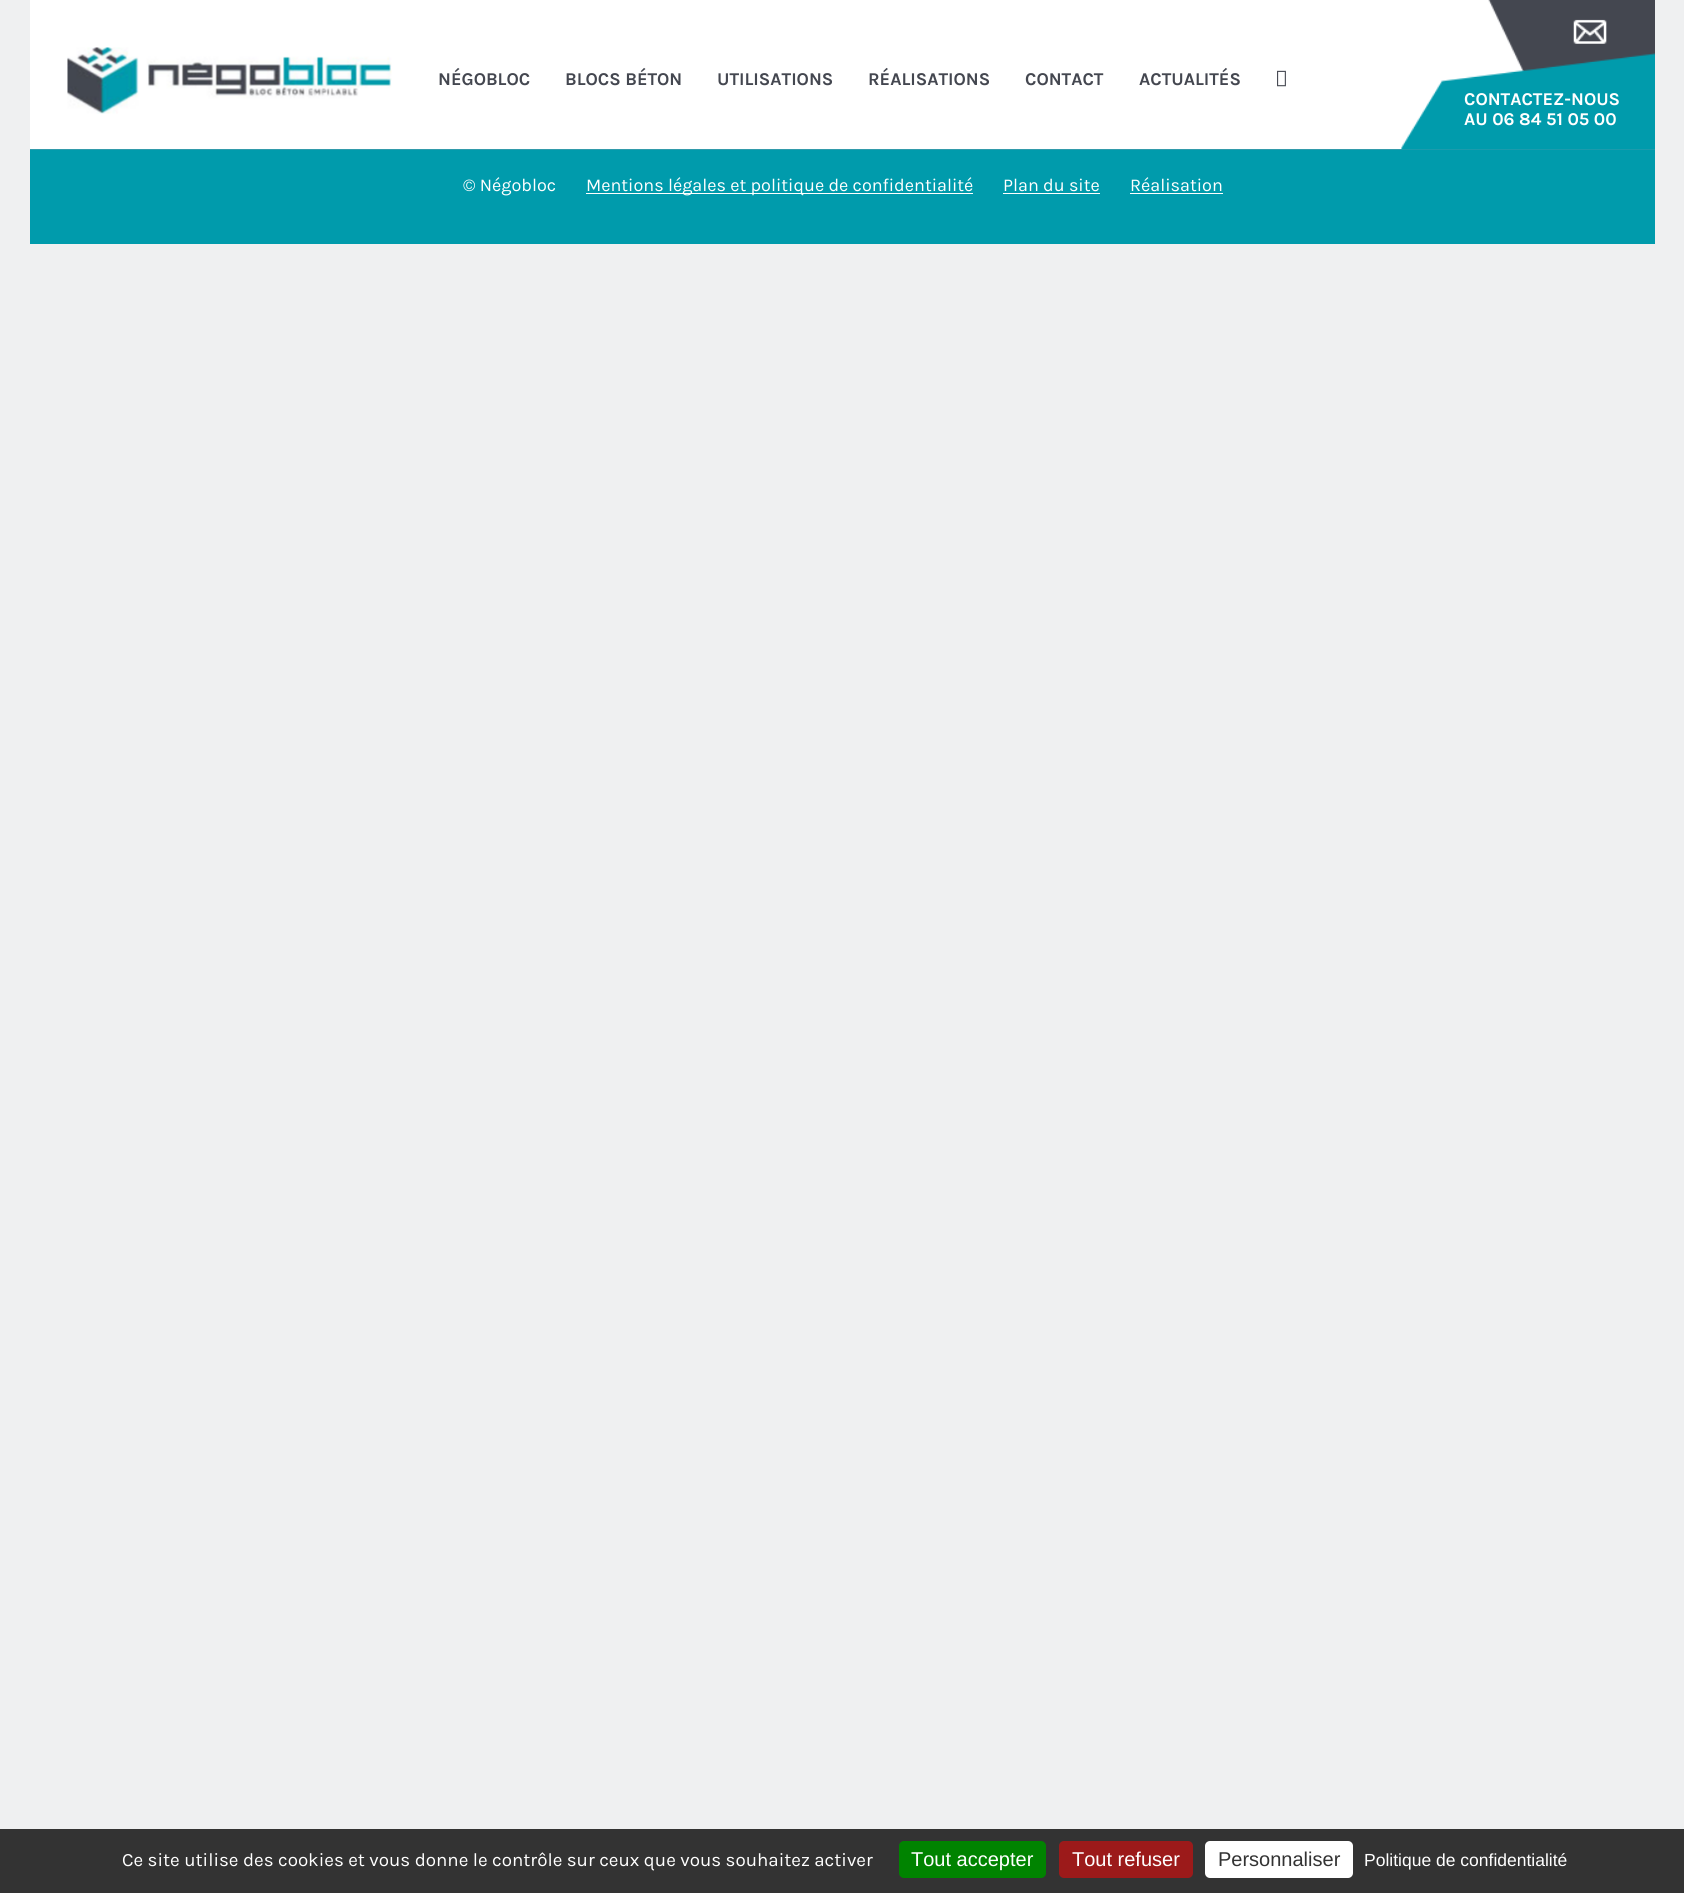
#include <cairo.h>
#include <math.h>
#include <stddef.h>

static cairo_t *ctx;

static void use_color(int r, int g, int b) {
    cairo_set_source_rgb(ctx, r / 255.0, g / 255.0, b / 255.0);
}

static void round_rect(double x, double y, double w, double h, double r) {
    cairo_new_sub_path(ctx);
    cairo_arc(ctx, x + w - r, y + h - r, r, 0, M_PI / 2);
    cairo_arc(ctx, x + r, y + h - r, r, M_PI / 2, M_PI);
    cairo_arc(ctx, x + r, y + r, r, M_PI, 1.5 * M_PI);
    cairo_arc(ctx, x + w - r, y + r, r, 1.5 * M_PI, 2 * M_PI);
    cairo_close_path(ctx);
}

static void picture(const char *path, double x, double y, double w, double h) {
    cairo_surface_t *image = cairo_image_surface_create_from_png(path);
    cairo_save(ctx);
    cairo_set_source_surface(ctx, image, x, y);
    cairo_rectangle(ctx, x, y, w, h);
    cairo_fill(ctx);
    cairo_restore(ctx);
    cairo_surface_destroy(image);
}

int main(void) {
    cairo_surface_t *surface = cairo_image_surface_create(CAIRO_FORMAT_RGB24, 1684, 1893);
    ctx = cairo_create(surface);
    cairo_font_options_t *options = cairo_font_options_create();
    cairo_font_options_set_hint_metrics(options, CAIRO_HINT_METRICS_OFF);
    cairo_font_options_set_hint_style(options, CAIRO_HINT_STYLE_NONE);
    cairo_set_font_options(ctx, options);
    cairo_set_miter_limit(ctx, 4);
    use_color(239, 240, 241);
    cairo_paint(ctx);
    use_color(255, 255, 255);
    cairo_rectangle(ctx, 30, 0, 1494, 149);
    cairo_fill(ctx);
    use_color(50, 155, 171);
    cairo_rectangle(ctx, 30, 149, 1625, 1);
    cairo_fill(ctx);
    picture("img1.png", 67, 47, 325, 67);
    cairo_select_font_face(ctx, "Karla", CAIRO_FONT_SLANT_NORMAL, CAIRO_FONT_WEIGHT_BOLD);
    cairo_set_font_size(ctx, 18);
    use_color(68, 71, 80);
    cairo_move_to(ctx, 438, 85);
    cairo_show_text(ctx, "NÉGOBLOC");
    cairo_move_to(ctx, 565, 85);
    cairo_show_text(ctx, "BLOCS BÉTON");
    cairo_move_to(ctx, 717, 85);
    cairo_show_text(ctx, "UTILISATIONS");
    cairo_move_to(ctx, 868, 85);
    cairo_show_text(ctx, "RÉALISATIONS");
    cairo_move_to(ctx, 1025, 85);
    cairo_show_text(ctx, "CONTACT");
    cairo_move_to(ctx, 1139, 85);
    cairo_show_text(ctx, "ACTUALITÉS");
    picture("img2.png", 1277, 70, 9, 17);
    picture("img3.png", 1488, 0, 167, 72);
    picture("img4.png", 1401, 53, 254, 97);
    use_color(255, 255, 255);
    cairo_move_to(ctx, 1464, 105);
    cairo_show_text(ctx, "CONTACTEZ-NOUS");
    cairo_move_to(ctx, 1464, 125);
    cairo_show_text(ctx, "AU 06 84 51 05 00");
    use_color(0, 155, 172);
    cairo_rectangle(ctx, 30, 150, 1625, 94);
    cairo_fill(ctx);
    cairo_select_font_face(ctx, "Karla", CAIRO_FONT_SLANT_NORMAL, CAIRO_FONT_WEIGHT_NORMAL);
    use_color(255, 255, 255);
    cairo_move_to(ctx, 463, 191);
    cairo_show_text(ctx, "© Négobloc");
    cairo_rectangle(ctx, 586, 193, 387, 1);
    cairo_fill(ctx);
    cairo_move_to(ctx, 586, 191);
    cairo_show_text(ctx, "Mentions légales et politique de confidentialité");
    cairo_move_to(ctx, 1003, 191);
    cairo_show_text(ctx, "Plan du site");
    cairo_rectangle(ctx, 1003, 193, 97, 1);
    cairo_fill(ctx);
    cairo_move_to(ctx, 1130, 191);
    cairo_show_text(ctx, "Réalisation");
    cairo_rectangle(ctx, 1130, 193, 93, 1);
    cairo_fill(ctx);
    use_color(51, 51, 51);
    cairo_rectangle(ctx, 0, 1829, 1684, 64);
    cairo_fill(ctx);
    cairo_set_font_size(ctx, 18.75);
    use_color(255, 255, 255);
    cairo_move_to(ctx, 122, 1866);
    cairo_show_text(ctx, "Ce site utilise des cookies et vous donne le contrôle sur ceux que vous souhaitez activer");
    use_color(0, 131, 0);
    round_rect(899, 1841, 147, 37, 5);
    cairo_fill(ctx);
    cairo_select_font_face(ctx, "Liberation Sans", CAIRO_FONT_SLANT_NORMAL, CAIRO_FONT_WEIGHT_NORMAL);
    cairo_set_font_size(ctx, 20);
    use_color(255, 255, 255);
    cairo_move_to(ctx, 911, 1866);
    cairo_show_text(ctx, "Tout accepter");
    use_color(156, 26, 26);
    round_rect(1059, 1841, 134, 37, 5);
    cairo_fill(ctx);
    use_color(255, 255, 255);
    cairo_move_to(ctx, 1072, 1866);
    cairo_show_text(ctx, "Tout refuser");
    round_rect(1205, 1841, 148, 37, 5);
    cairo_fill(ctx);
    use_color(51, 51, 51);
    cairo_move_to(ctx, 1218, 1866);
    cairo_show_text(ctx, "Personnaliser");
    cairo_set_font_size(ctx, 17.5);
    use_color(255, 255, 255);
    cairo_move_to(ctx, 1364, 1866);
    cairo_show_text(ctx, "Politique de confidentialité");
    cairo_surface_write_to_png(surface, "result.png");
    cairo_font_options_destroy(options);
    cairo_destroy(ctx);
    cairo_surface_destroy(surface);
    return 0;
}
